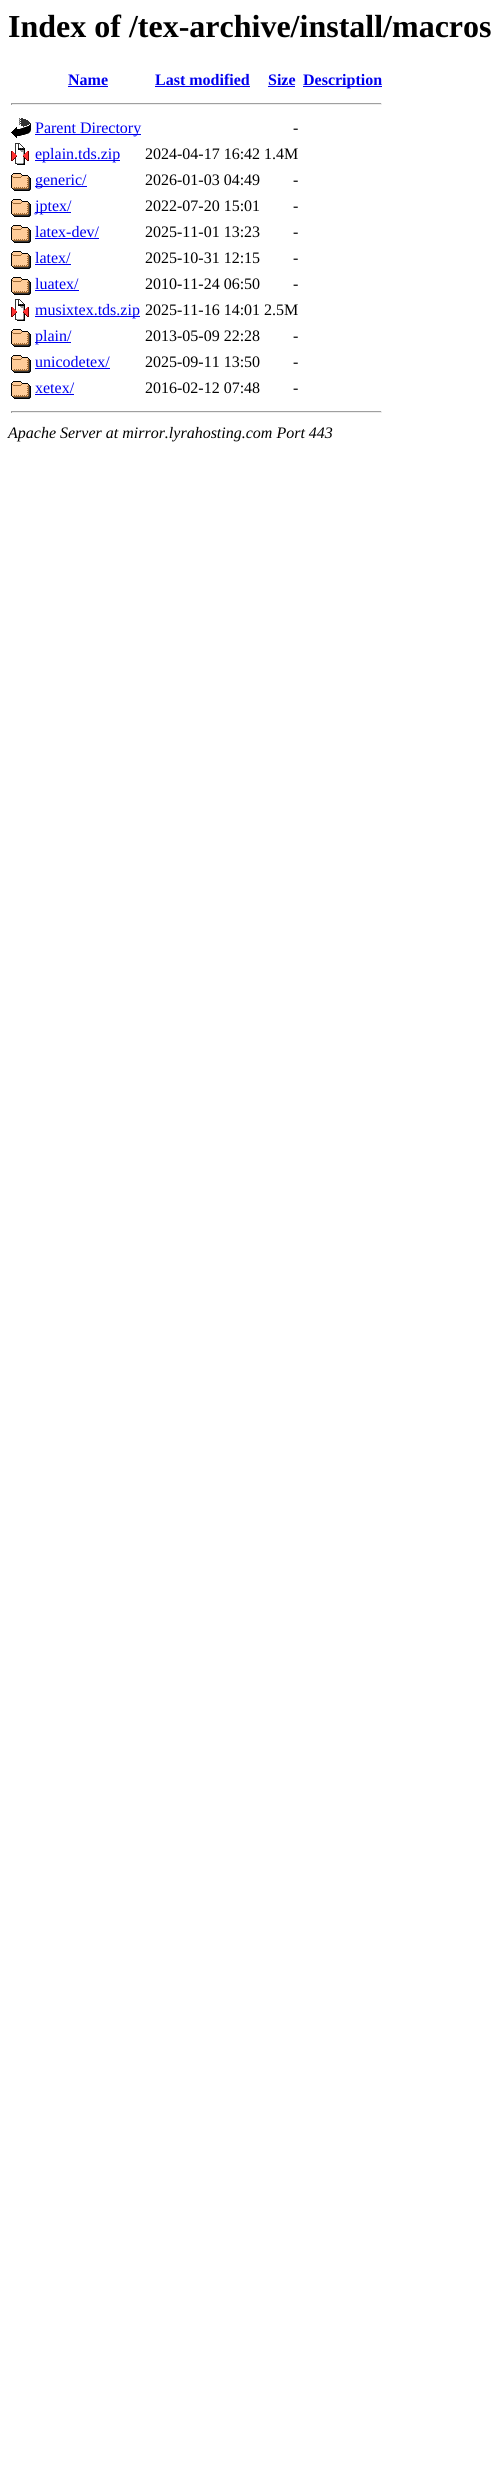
#include <cairo.h>
#include <math.h>
#include <stddef.h>

static cairo_t *ctx;

static void use_color(int r, int g, int b) {
    cairo_set_source_rgb(ctx, r / 255.0, g / 255.0, b / 255.0);
}

static void picture(const char *path, double x, double y, double w, double h) {
    cairo_surface_t *image = cairo_image_surface_create_from_png(path);
    cairo_save(ctx);
    cairo_set_source_surface(ctx, image, x, y);
    cairo_rectangle(ctx, x, y, w, h);
    cairo_fill(ctx);
    cairo_restore(ctx);
    cairo_surface_destroy(image);
}

int main(void) {
    cairo_surface_t *surface = cairo_image_surface_create(CAIRO_FORMAT_RGB24, 503, 2491);
    ctx = cairo_create(surface);
    cairo_font_options_t *options = cairo_font_options_create();
    cairo_font_options_set_hint_metrics(options, CAIRO_HINT_METRICS_OFF);
    cairo_font_options_set_hint_style(options, CAIRO_HINT_STYLE_NONE);
    cairo_set_font_options(ctx, options);
    cairo_set_miter_limit(ctx, 4);
    use_color(255, 255, 255);
    cairo_paint(ctx);
    cairo_select_font_face(ctx, "Liberation Serif", CAIRO_FONT_SLANT_NORMAL, CAIRO_FONT_WEIGHT_BOLD);
    cairo_set_font_size(ctx, 32);
    use_color(0, 0, 0);
    cairo_move_to(ctx, 8, 37);
    cairo_show_text(ctx, "Index of /tex-archive/install/macros");
    cairo_set_font_size(ctx, 16);
    use_color(0, 0, 238);
    cairo_move_to(ctx, 68, 85);
    cairo_show_text(ctx, "Name");
    cairo_rectangle(ctx, 68, 86, 40, 1);
    cairo_fill(ctx);
    cairo_move_to(ctx, 155, 85);
    cairo_show_text(ctx, "Last modified");
    cairo_rectangle(ctx, 155, 86, 95, 1);
    cairo_fill(ctx);
    cairo_move_to(ctx, 268, 85);
    cairo_show_text(ctx, "Size");
    cairo_rectangle(ctx, 268, 86, 27, 1);
    cairo_fill(ctx);
    cairo_rectangle(ctx, 303, 86, 79, 1);
    cairo_fill(ctx);
    cairo_move_to(ctx, 303, 85);
    cairo_show_text(ctx, "Description");
    use_color(159, 159, 159);
    cairo_rectangle(ctx, 11, 103, 371, 1);
    cairo_fill(ctx);
    use_color(238, 238, 238);
    cairo_rectangle(ctx, 381, 103, 1, 2);
    cairo_fill(ctx);
    cairo_rectangle(ctx, 11, 104, 371, 1);
    cairo_fill(ctx);
    use_color(159, 159, 159);
    cairo_rectangle(ctx, 11, 103, 1, 2);
    cairo_fill(ctx);
    picture("img1.png", 11, 118, 20, 20);
    use_color(0, 0, 238);
    cairo_rectangle(ctx, 35, 134, 106, 1);
    cairo_fill(ctx);
    cairo_select_font_face(ctx, "Liberation Serif", CAIRO_FONT_SLANT_NORMAL, CAIRO_FONT_WEIGHT_NORMAL);
    cairo_move_to(ctx, 35, 133);
    cairo_show_text(ctx, "Parent Directory");
    use_color(0, 0, 0);
    cairo_move_to(ctx, 293, 133);
    cairo_show_text(ctx, "-");
    picture("img2.png", 11, 143, 18, 22);
    use_color(0, 0, 238);
    cairo_rectangle(ctx, 35, 160, 85, 1);
    cairo_fill(ctx);
    cairo_move_to(ctx, 35, 159);
    cairo_show_text(ctx, "eplain.tds.zip");
    use_color(0, 0, 0);
    cairo_move_to(ctx, 145, 159);
    cairo_show_text(ctx, "2024-04-17 16:42 1.4M");
    picture("img3.png", 11, 173, 20, 18);
    use_color(0, 0, 238);
    cairo_rectangle(ctx, 35, 186, 52, 1);
    cairo_fill(ctx);
    cairo_move_to(ctx, 35, 185);
    cairo_show_text(ctx, "generic/");
    use_color(0, 0, 0);
    cairo_move_to(ctx, 145, 185);
    cairo_show_text(ctx, "2026-01-03 04:49");
    cairo_move_to(ctx, 293, 185);
    cairo_show_text(ctx, "-");
    picture("img3.png", 11, 199, 20, 18);
    use_color(0, 0, 238);
    cairo_rectangle(ctx, 35, 212, 36, 1);
    cairo_fill(ctx);
    cairo_move_to(ctx, 35, 211);
    cairo_show_text(ctx, "jptex/");
    use_color(0, 0, 0);
    cairo_move_to(ctx, 145, 211);
    cairo_show_text(ctx, "2022-07-20 15:01");
    cairo_move_to(ctx, 293, 211);
    cairo_show_text(ctx, "-");
    picture("img3.png", 11, 225, 20, 18);
    use_color(0, 0, 238);
    cairo_move_to(ctx, 35, 237);
    cairo_show_text(ctx, "latex-dev/");
    cairo_rectangle(ctx, 35, 238, 64, 1);
    cairo_fill(ctx);
    use_color(0, 0, 0);
    cairo_move_to(ctx, 145, 237);
    cairo_show_text(ctx, "2025-11-01 13:23");
    cairo_move_to(ctx, 293, 237);
    cairo_show_text(ctx, "-");
    picture("img3.png", 11, 251, 20, 18);
    use_color(0, 0, 238);
    cairo_move_to(ctx, 35, 263);
    cairo_show_text(ctx, "latex/");
    cairo_rectangle(ctx, 35, 264, 36, 1);
    cairo_fill(ctx);
    use_color(0, 0, 0);
    cairo_move_to(ctx, 145, 263);
    cairo_show_text(ctx, "2025-10-31 12:15");
    cairo_move_to(ctx, 293, 263);
    cairo_show_text(ctx, "-");
    picture("img3.png", 11, 277, 20, 18);
    use_color(0, 0, 238);
    cairo_move_to(ctx, 35, 289);
    cairo_show_text(ctx, "luatex/");
    cairo_rectangle(ctx, 35, 290, 44, 1);
    cairo_fill(ctx);
    use_color(0, 0, 0);
    cairo_move_to(ctx, 145, 289);
    cairo_show_text(ctx, "2010-11-24 06:50");
    cairo_move_to(ctx, 293, 289);
    cairo_show_text(ctx, "-");
    picture("img2.png", 11, 299, 18, 22);
    use_color(0, 0, 238);
    cairo_rectangle(ctx, 35, 316, 105, 1);
    cairo_fill(ctx);
    cairo_move_to(ctx, 35, 315);
    cairo_show_text(ctx, "musixtex.tds.zip");
    use_color(0, 0, 0);
    cairo_move_to(ctx, 145, 315);
    cairo_show_text(ctx, "2025-11-16 14:01 2.5M");
    picture("img3.png", 11, 329, 20, 18);
    use_color(0, 0, 238);
    cairo_rectangle(ctx, 35, 342, 36, 1);
    cairo_fill(ctx);
    cairo_move_to(ctx, 35, 341);
    cairo_show_text(ctx, "plain/");
    use_color(0, 0, 0);
    cairo_move_to(ctx, 145, 341);
    cairo_show_text(ctx, "2013-05-09 22:28");
    cairo_move_to(ctx, 293, 341);
    cairo_show_text(ctx, "-");
    picture("img3.png", 11, 355, 20, 18);
    use_color(0, 0, 238);
    cairo_move_to(ctx, 35, 367);
    cairo_show_text(ctx, "unicodetex/");
    cairo_rectangle(ctx, 35, 368, 75, 1);
    cairo_fill(ctx);
    use_color(0, 0, 0);
    cairo_move_to(ctx, 145, 367);
    cairo_show_text(ctx, "2025-09-11 13:50");
    cairo_move_to(ctx, 293, 367);
    cairo_show_text(ctx, "-");
    picture("img3.png", 11, 381, 20, 18);
    use_color(0, 0, 238);
    cairo_move_to(ctx, 35, 393);
    cairo_show_text(ctx, "xetex/");
    cairo_rectangle(ctx, 35, 394, 39, 1);
    cairo_fill(ctx);
    use_color(0, 0, 0);
    cairo_move_to(ctx, 145, 393);
    cairo_show_text(ctx, "2016-02-12 07:48");
    cairo_move_to(ctx, 293, 393);
    cairo_show_text(ctx, "-");
    use_color(159, 159, 159);
    cairo_rectangle(ctx, 11, 411, 371, 1);
    cairo_fill(ctx);
    use_color(238, 238, 238);
    cairo_rectangle(ctx, 381, 411, 1, 2);
    cairo_fill(ctx);
    cairo_rectangle(ctx, 11, 412, 371, 1);
    cairo_fill(ctx);
    use_color(159, 159, 159);
    cairo_rectangle(ctx, 11, 411, 1, 2);
    cairo_fill(ctx);
    cairo_select_font_face(ctx, "Liberation Serif", CAIRO_FONT_SLANT_ITALIC, CAIRO_FONT_WEIGHT_NORMAL);
    use_color(0, 0, 0);
    cairo_move_to(ctx, 8, 438);
    cairo_show_text(ctx, "Apache Server at mirror.lyrahosting.com Port 443");
    cairo_surface_write_to_png(surface, "result.png");
    cairo_font_options_destroy(options);
    cairo_destroy(ctx);
    cairo_surface_destroy(surface);
    return 0;
}
